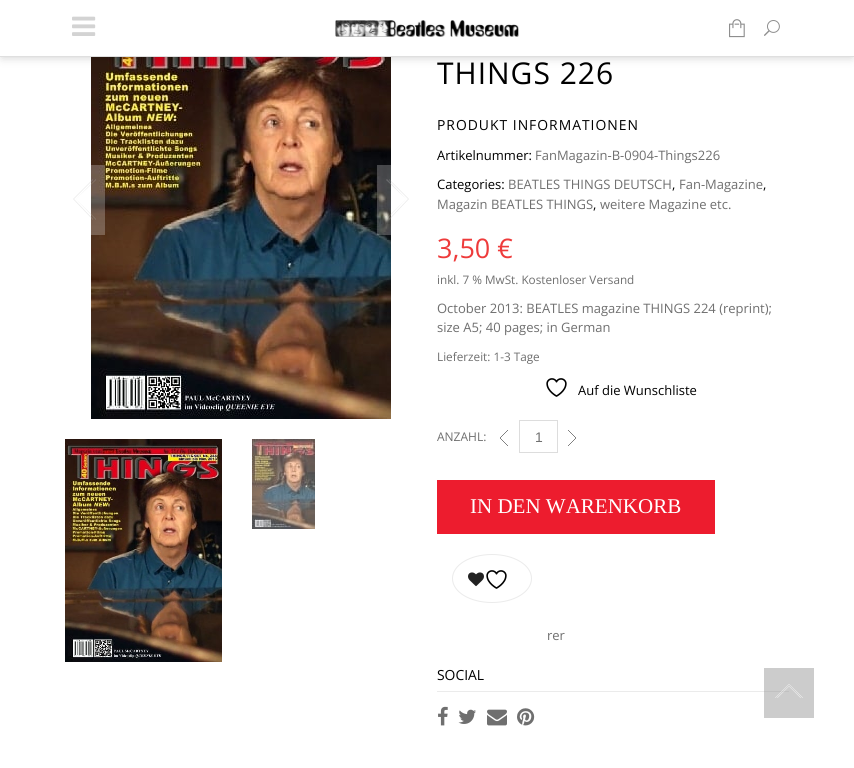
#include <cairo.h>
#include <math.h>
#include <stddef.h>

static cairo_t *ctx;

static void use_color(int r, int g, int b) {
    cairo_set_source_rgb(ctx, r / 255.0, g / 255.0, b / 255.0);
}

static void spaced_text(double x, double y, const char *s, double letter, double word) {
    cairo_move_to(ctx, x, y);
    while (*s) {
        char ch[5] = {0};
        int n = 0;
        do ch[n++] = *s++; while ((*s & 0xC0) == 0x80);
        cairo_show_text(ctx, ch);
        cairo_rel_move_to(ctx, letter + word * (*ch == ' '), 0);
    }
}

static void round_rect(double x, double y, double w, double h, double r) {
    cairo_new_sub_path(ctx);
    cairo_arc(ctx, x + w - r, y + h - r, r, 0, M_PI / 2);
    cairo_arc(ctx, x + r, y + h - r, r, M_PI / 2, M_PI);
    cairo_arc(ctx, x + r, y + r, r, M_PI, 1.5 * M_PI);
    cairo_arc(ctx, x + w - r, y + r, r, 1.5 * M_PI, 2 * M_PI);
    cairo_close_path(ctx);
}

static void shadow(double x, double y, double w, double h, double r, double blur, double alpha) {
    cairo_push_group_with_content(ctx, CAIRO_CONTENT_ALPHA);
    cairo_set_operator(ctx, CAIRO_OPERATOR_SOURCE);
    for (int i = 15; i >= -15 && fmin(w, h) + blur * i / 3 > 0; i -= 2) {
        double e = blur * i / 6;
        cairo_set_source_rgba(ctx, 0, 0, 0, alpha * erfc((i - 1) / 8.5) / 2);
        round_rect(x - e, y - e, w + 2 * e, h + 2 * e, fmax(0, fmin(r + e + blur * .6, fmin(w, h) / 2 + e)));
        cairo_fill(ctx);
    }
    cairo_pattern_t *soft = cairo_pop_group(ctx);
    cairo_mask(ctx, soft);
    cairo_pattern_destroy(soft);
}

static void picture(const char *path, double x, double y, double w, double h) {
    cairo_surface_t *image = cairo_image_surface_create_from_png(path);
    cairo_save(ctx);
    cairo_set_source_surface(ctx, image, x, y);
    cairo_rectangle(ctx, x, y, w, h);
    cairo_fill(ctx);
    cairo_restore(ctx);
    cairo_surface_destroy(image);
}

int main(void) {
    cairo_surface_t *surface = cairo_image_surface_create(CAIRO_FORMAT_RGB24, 854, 768);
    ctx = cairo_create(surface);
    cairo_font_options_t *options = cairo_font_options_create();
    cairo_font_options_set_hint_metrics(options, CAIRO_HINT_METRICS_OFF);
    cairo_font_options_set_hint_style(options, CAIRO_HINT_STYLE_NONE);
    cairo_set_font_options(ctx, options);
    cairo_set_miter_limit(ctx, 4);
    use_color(255, 255, 255);
    cairo_paint(ctx);
    use_color(204, 204, 204);
    cairo_rectangle(ctx, 764, 668, 50, 50);
    cairo_fill(ctx);
    picture("img5.png", 91, 57, 300, 362);
    use_color(0, 0, 0);
    shadow(2, 4, 850, 53, 0, 5, 0.2);
    use_color(255, 255, 255);
    cairo_rectangle(ctx, 0, 0, 854, 56);
    cairo_fill(ctx);
    use_color(223, 223, 223);
    cairo_rectangle(ctx, 0, 56, 854, 1);
    cairo_fill(ctx);
    picture("img1.png", 72, 16, 24, 20);
    picture("img2.png", 335, 20, 184, 17);
    picture("img3.png", 729, 19, 16, 19);
    picture("img4.png", 764, 20, 16, 16);
    cairo_set_source_rgba(ctx, 1, 1, 1, 0.24);
    cairo_rectangle(ctx, 91, 165, 14, 70);
    cairo_fill(ctx);
    cairo_set_source_rgba(ctx, 0.722, 0.722, 0.722, 0.3);
    cairo_new_path(ctx);
    cairo_move_to(ctx, 93, 180);
    cairo_line_to(ctx, 93, 179);
    cairo_line_to(ctx, 73, 199);
    cairo_line_to(ctx, 93, 220);
    cairo_line_to(ctx, 93, 219);
    cairo_line_to(ctx, 74, 199);
    cairo_close_path(ctx);
    cairo_move_to(ctx, 76, 199);
    cairo_line_to(ctx, 96, 180);
    cairo_line_to(ctx, 96, 179);
    cairo_line_to(ctx, 76, 199);
    cairo_line_to(ctx, 96, 220);
    cairo_line_to(ctx, 96, 219);
    cairo_close_path(ctx);
    cairo_fill(ctx);
    cairo_set_source_rgba(ctx, 1, 1, 1, 0.24);
    cairo_rectangle(ctx, 377, 165, 14, 70);
    cairo_fill(ctx);
    cairo_set_source_rgba(ctx, 0.722, 0.722, 0.722, 0.3);
    cairo_new_path(ctx);
    cairo_move_to(ctx, 389, 180);
    cairo_line_to(ctx, 389, 179);
    cairo_line_to(ctx, 409, 199);
    cairo_line_to(ctx, 389, 220);
    cairo_line_to(ctx, 389, 219);
    cairo_line_to(ctx, 408, 199);
    cairo_close_path(ctx);
    cairo_move_to(ctx, 406, 199);
    cairo_line_to(ctx, 386, 180);
    cairo_line_to(ctx, 387, 179);
    cairo_line_to(ctx, 406, 199);
    cairo_line_to(ctx, 386, 220);
    cairo_line_to(ctx, 386, 219);
    cairo_close_path(ctx);
    cairo_fill(ctx);
    picture("img6.png", 65, 439, 157, 223);
    picture("img7.png", 252, 439, 63, 90);
    cairo_select_font_face(ctx, "Open Sans", CAIRO_FONT_SLANT_NORMAL, CAIRO_FONT_WEIGHT_NORMAL);
    cairo_set_font_size(ctx, 30);
    use_color(0, 0, 0);
    spaced_text(437, 84, "THINGS 226", 1, 0);
    cairo_set_font_size(ctx, 13.9);
    spaced_text(437, 130, "PRODUKT INFORMATIONEN", 1, 0);
    cairo_set_font_size(ctx, 13);
    cairo_move_to(ctx, 437, 160);
    cairo_show_text(ctx, "Artikelnummer:");
    use_color(111, 111, 111);
    cairo_move_to(ctx, 535, 160);
    cairo_show_text(ctx, "FanMagazin-B-0904-Things226");
    use_color(0, 0, 0);
    cairo_move_to(ctx, 437, 189);
    cairo_show_text(ctx, "Categories:");
    use_color(111, 111, 111);
    cairo_move_to(ctx, 508, 189);
    cairo_show_text(ctx, "BEATLES THINGS DEUTSCH");
    use_color(0, 0, 0);
    cairo_move_to(ctx, 672, 189);
    cairo_show_text(ctx, ",");
    use_color(111, 111, 111);
    cairo_move_to(ctx, 679, 189);
    cairo_show_text(ctx, "Fan-Magazine");
    use_color(0, 0, 0);
    cairo_move_to(ctx, 763, 189);
    cairo_show_text(ctx, ",");
    use_color(111, 111, 111);
    cairo_move_to(ctx, 437, 209);
    cairo_show_text(ctx, "Magazin BEATLES THINGS");
    use_color(0, 0, 0);
    cairo_move_to(ctx, 593, 209);
    cairo_show_text(ctx, ",");
    use_color(111, 111, 111);
    cairo_move_to(ctx, 600, 209);
    cairo_show_text(ctx, "weitere Magazine etc.");
    cairo_set_font_size(ctx, 27);
    use_color(238, 59, 59);
    cairo_move_to(ctx, 437, 258);
    cairo_show_text(ctx, "3,50 €");
    cairo_set_font_size(ctx, 11.75);
    use_color(111, 111, 111);
    cairo_move_to(ctx, 437, 284);
    cairo_show_text(ctx, "inkl. 7 % MwSt. Kostenloser Versand");
    cairo_set_font_size(ctx, 13);
    cairo_move_to(ctx, 437, 313);
    cairo_show_text(ctx, "October 2013: BEATLES magazine THINGS 224 (reprint);");
    cairo_move_to(ctx, 437, 332);
    cairo_show_text(ctx, "size A5; 40 pages; in German");
    cairo_set_font_size(ctx, 11.75);
    cairo_move_to(ctx, 437, 361);
    cairo_show_text(ctx, "Lieferzeit: 1-3 Tage");
    picture("img8.png", 546, 378, 21, 19);
    cairo_set_font_size(ctx, 13);
    use_color(0, 0, 0);
    cairo_move_to(ctx, 578, 395);
    cairo_show_text(ctx, "Auf die Wunschliste");
    cairo_set_font_size(ctx, 12);
    use_color(111, 111, 111);
    cairo_move_to(ctx, 437, 441);
    cairo_show_text(ctx, "ANZAHL:");
    picture("img9.png", 500, 430, 8, 16);
    cairo_rectangle(ctx, 519.5, 420.5, 38, 32);
    use_color(221, 221, 221);
    cairo_set_line_width(ctx, 1);
    cairo_stroke(ctx);
    cairo_select_font_face(ctx, "Liberation Sans", CAIRO_FONT_SLANT_NORMAL, CAIRO_FONT_WEIGHT_NORMAL);
    cairo_set_font_size(ctx, 13.9);
    use_color(111, 111, 111);
    cairo_move_to(ctx, 535, 442);
    cairo_show_text(ctx, "1");
    picture("img10.png", 568, 430, 8, 16);
    use_color(237, 28, 46);
    cairo_rectangle(ctx, 437, 480, 278, 54);
    cairo_fill(ctx);
    cairo_select_font_face(ctx, "Liberation Serif", CAIRO_FONT_SLANT_NORMAL, CAIRO_FONT_WEIGHT_NORMAL);
    cairo_set_font_size(ctx, 21);
    use_color(255, 255, 255);
    cairo_move_to(ctx, 470, 513);
    cairo_show_text(ctx, "IN DEN WARENKORB");
    cairo_new_path(ctx);
    cairo_move_to(ctx, 492, 554.5);
    cairo_curve_to(ctx, 514, 554.5, 531.5, 565, 531.5, 578.5);
    cairo_curve_to(ctx, 531.5, 592, 514, 602.5, 492, 602.5);
    cairo_curve_to(ctx, 470, 602.5, 452.5, 592, 452.5, 578.5);
    cairo_curve_to(ctx, 452.5, 565, 470, 554.5, 492, 554.5);
    cairo_close_path(ctx);
    use_color(235, 235, 235);
    cairo_stroke(ctx);
    picture("img11.png", 468, 572, 16, 15);
    picture("img8.png", 486, 570, 21, 19);
    cairo_select_font_face(ctx, "Open Sans", CAIRO_FONT_SLANT_NORMAL, CAIRO_FONT_WEIGHT_NORMAL);
    cairo_set_font_size(ctx, 13);
    use_color(111, 111, 111);
    cairo_move_to(ctx, 547, 640);
    cairo_show_text(ctx, "rer");
    use_color(235, 235, 235);
    cairo_rectangle(ctx, 437, 691, 327, 1);
    cairo_fill(ctx);
    use_color(193, 193, 193);
    cairo_rectangle(ctx, 764, 691, 25, 1);
    cairo_fill(ctx);
    cairo_set_font_size(ctx, 13.9);
    use_color(0, 0, 0);
    cairo_move_to(ctx, 437, 680);
    cairo_show_text(ctx, "SOCIAL");
    picture("img12.png", 438, 706, 10, 20);
    picture("img13.png", 458, 709, 18, 15);
    picture("img14.png", 487, 709, 20, 17);
    picture("img15.png", 517, 708, 18, 18);
    picture("img16.png", 775, 684, 28, 14);
    cairo_surface_write_to_png(surface, "result.png");
    cairo_font_options_destroy(options);
    cairo_destroy(ctx);
    cairo_surface_destroy(surface);
    return 0;
}
